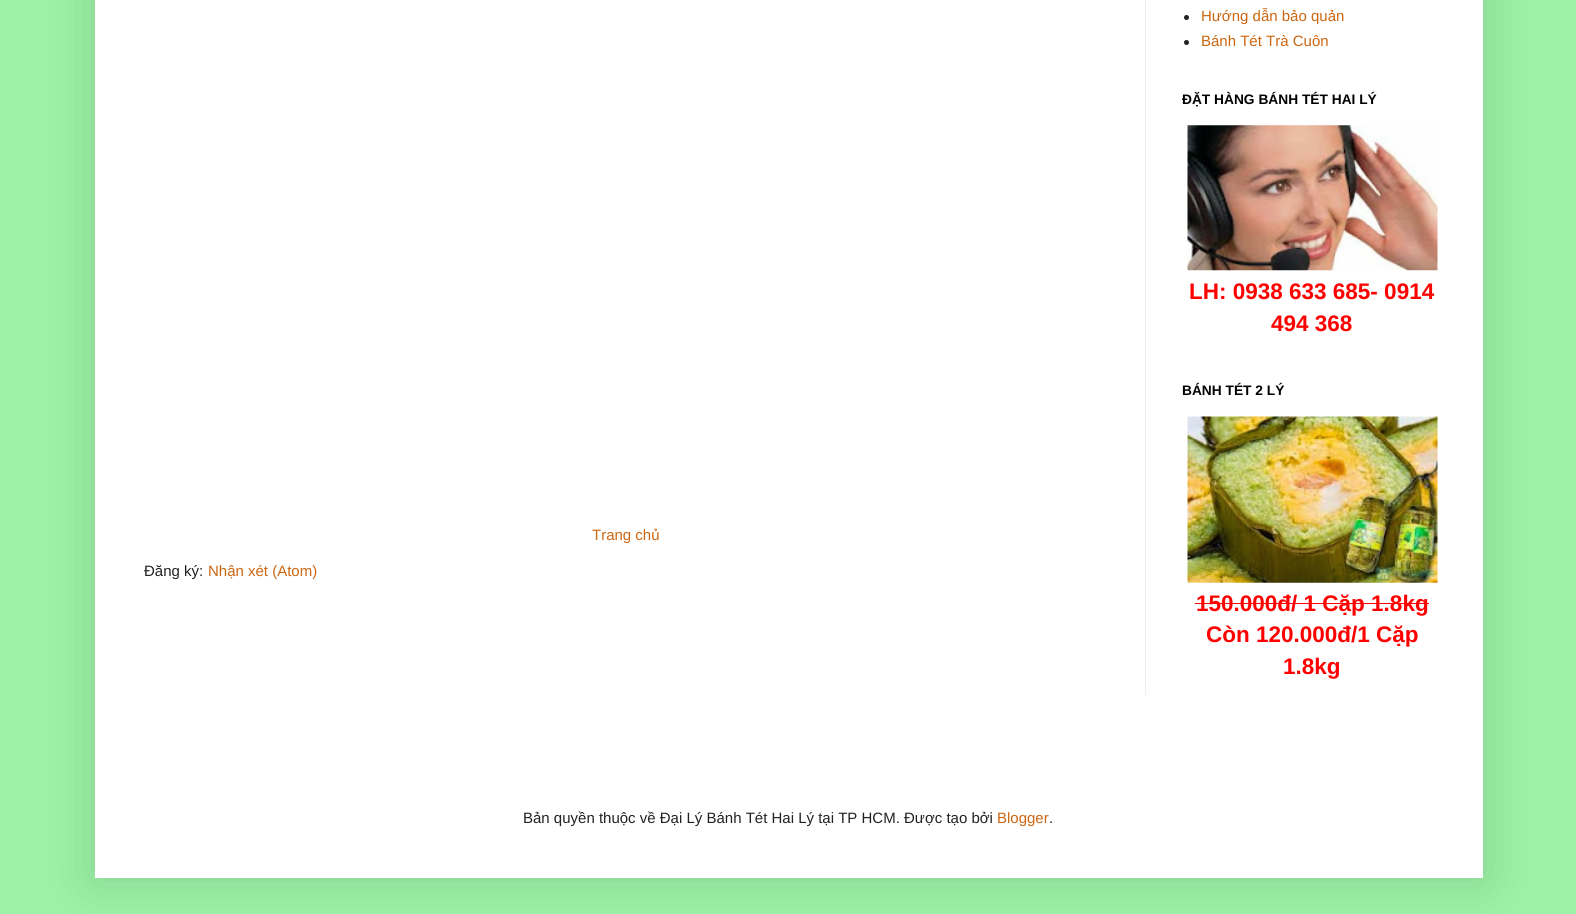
#include <cairo.h>
#include <math.h>
#include <stddef.h>

static cairo_t *ctx;

static void use_color(int r, int g, int b) {
    cairo_set_source_rgb(ctx, r / 255.0, g / 255.0, b / 255.0);
}

static void round_rect(double x, double y, double w, double h, double r) {
    cairo_new_sub_path(ctx);
    cairo_arc(ctx, x + w - r, y + h - r, r, 0, M_PI / 2);
    cairo_arc(ctx, x + r, y + h - r, r, M_PI / 2, M_PI);
    cairo_arc(ctx, x + r, y + r, r, M_PI, 1.5 * M_PI);
    cairo_arc(ctx, x + w - r, y + r, r, 1.5 * M_PI, 2 * M_PI);
    cairo_close_path(ctx);
}

static void shadow(double x, double y, double w, double h, double r, double blur, double alpha) {
    cairo_push_group_with_content(ctx, CAIRO_CONTENT_ALPHA);
    cairo_set_operator(ctx, CAIRO_OPERATOR_SOURCE);
    for (int i = 15; i >= -15 && fmin(w, h) + blur * i / 3 > 0; i -= 2) {
        double e = blur * i / 6;
        cairo_set_source_rgba(ctx, 0, 0, 0, alpha * erfc((i - 1) / 8.5) / 2);
        round_rect(x - e, y - e, w + 2 * e, h + 2 * e, fmax(0, fmin(r + e + blur * .6, fmin(w, h) / 2 + e)));
        cairo_fill(ctx);
    }
    cairo_pattern_t *soft = cairo_pop_group(ctx);
    cairo_mask(ctx, soft);
    cairo_pattern_destroy(soft);
}

static void picture(const char *path, double x, double y, double w, double h) {
    cairo_surface_t *image = cairo_image_surface_create_from_png(path);
    cairo_save(ctx);
    cairo_set_source_surface(ctx, image, x, y);
    cairo_rectangle(ctx, x, y, w, h);
    cairo_fill(ctx);
    cairo_restore(ctx);
    cairo_surface_destroy(image);
}

int main(void) {
    cairo_surface_t *surface = cairo_image_surface_create(CAIRO_FORMAT_RGB24, 1576, 914);
    ctx = cairo_create(surface);
    cairo_font_options_t *options = cairo_font_options_create();
    cairo_font_options_set_hint_metrics(options, CAIRO_HINT_METRICS_OFF);
    cairo_font_options_set_hint_style(options, CAIRO_HINT_STYLE_NONE);
    cairo_set_font_options(ctx, options);
    cairo_set_miter_limit(ctx, 4);
    use_color(156, 241, 166);
    cairo_paint(ctx);
    use_color(0, 0, 0);
    shadow(95, -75, 1388, 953, 0, 25, 0.15);
    use_color(255, 255, 255);
    cairo_rectangle(ctx, 95, 0, 1388, 878);
    cairo_fill(ctx);
    use_color(238, 238, 238);
    cairo_rectangle(ctx, 1145, 0, 1, 695);
    cairo_fill(ctx);
    cairo_select_font_face(ctx, "Liberation Sans", CAIRO_FONT_SLANT_NORMAL, CAIRO_FONT_WEIGHT_NORMAL);
    cairo_set_font_size(ctx, 15);
    use_color(204, 102, 17);
    cairo_move_to(ctx, 592, 540);
    cairo_show_text(ctx, "Trang chủ");
    use_color(34, 34, 34);
    cairo_move_to(ctx, 144, 576);
    cairo_show_text(ctx, "Đăng ký:");
    use_color(204, 102, 17);
    cairo_move_to(ctx, 208, 576);
    cairo_show_text(ctx, "Nhận xét (Atom)");
    use_color(34, 34, 34);
    cairo_new_path(ctx);
    cairo_arc(ctx, 1186.5, 17.5, 2.5, 0, 2 * M_PI);
    cairo_fill(ctx);
    use_color(204, 102, 17);
    cairo_move_to(ctx, 1201, 21);
    cairo_show_text(ctx, "Hướng dẫn bảo quản");
    use_color(34, 34, 34);
    cairo_new_path(ctx);
    cairo_arc(ctx, 1186.5, 42.5, 2.5, 0, 2 * M_PI);
    cairo_fill(ctx);
    use_color(204, 102, 17);
    cairo_move_to(ctx, 1201, 46);
    cairo_show_text(ctx, "Bánh Tét Trà Cuôn");
    cairo_select_font_face(ctx, "Liberation Sans", CAIRO_FONT_SLANT_NORMAL, CAIRO_FONT_WEIGHT_BOLD);
    cairo_set_font_size(ctx, 13.75);
    use_color(0, 0, 0);
    cairo_move_to(ctx, 1182, 104);
    cairo_show_text(ctx, "ĐẶT HÀNG BÁNH TÉT HAI LÝ");
    picture("img1.png", 1187, 125, 251, 146);
    cairo_set_font_size(ctx, 22.5);
    use_color(255, 0, 0);
    cairo_move_to(ctx, 1189, 299);
    cairo_show_text(ctx, "LH: 0938 633 685- 0914");
    cairo_move_to(ctx, 1271, 331);
    cairo_show_text(ctx, "494 368");
    cairo_set_font_size(ctx, 13.75);
    use_color(0, 0, 0);
    cairo_move_to(ctx, 1182, 395);
    cairo_show_text(ctx, "BÁNH TÉT 2 LÝ");
    picture("img2.png", 1187, 416, 251, 167);
    cairo_set_font_size(ctx, 22.5);
    use_color(255, 0, 0);
    cairo_move_to(ctx, 1196, 611);
    cairo_show_text(ctx, "150.000đ/ 1 Cặp 1.8kg");
    cairo_rectangle(ctx, 1195, 603, 234, 1);
    cairo_fill(ctx);
    cairo_move_to(ctx, 1206, 642);
    cairo_show_text(ctx, "Còn 120.000đ/1 Cặp");
    cairo_move_to(ctx, 1283, 674);
    cairo_show_text(ctx, "1.8kg");
    cairo_select_font_face(ctx, "Liberation Sans", CAIRO_FONT_SLANT_NORMAL, CAIRO_FONT_WEIGHT_NORMAL);
    cairo_set_font_size(ctx, 15);
    use_color(34, 34, 34);
    cairo_move_to(ctx, 523, 823);
    cairo_show_text(ctx, "Bản quyền thuộc về Đại Lý Bánh Tét Hai Lý tại TP HCM. Được tạo bởi");
    use_color(204, 102, 17);
    cairo_move_to(ctx, 997, 823);
    cairo_show_text(ctx, "Blogger");
    use_color(34, 34, 34);
    cairo_move_to(ctx, 1049, 823);
    cairo_show_text(ctx, ".");
    cairo_surface_write_to_png(surface, "result.png");
    cairo_font_options_destroy(options);
    cairo_destroy(ctx);
    cairo_surface_destroy(surface);
    return 0;
}
